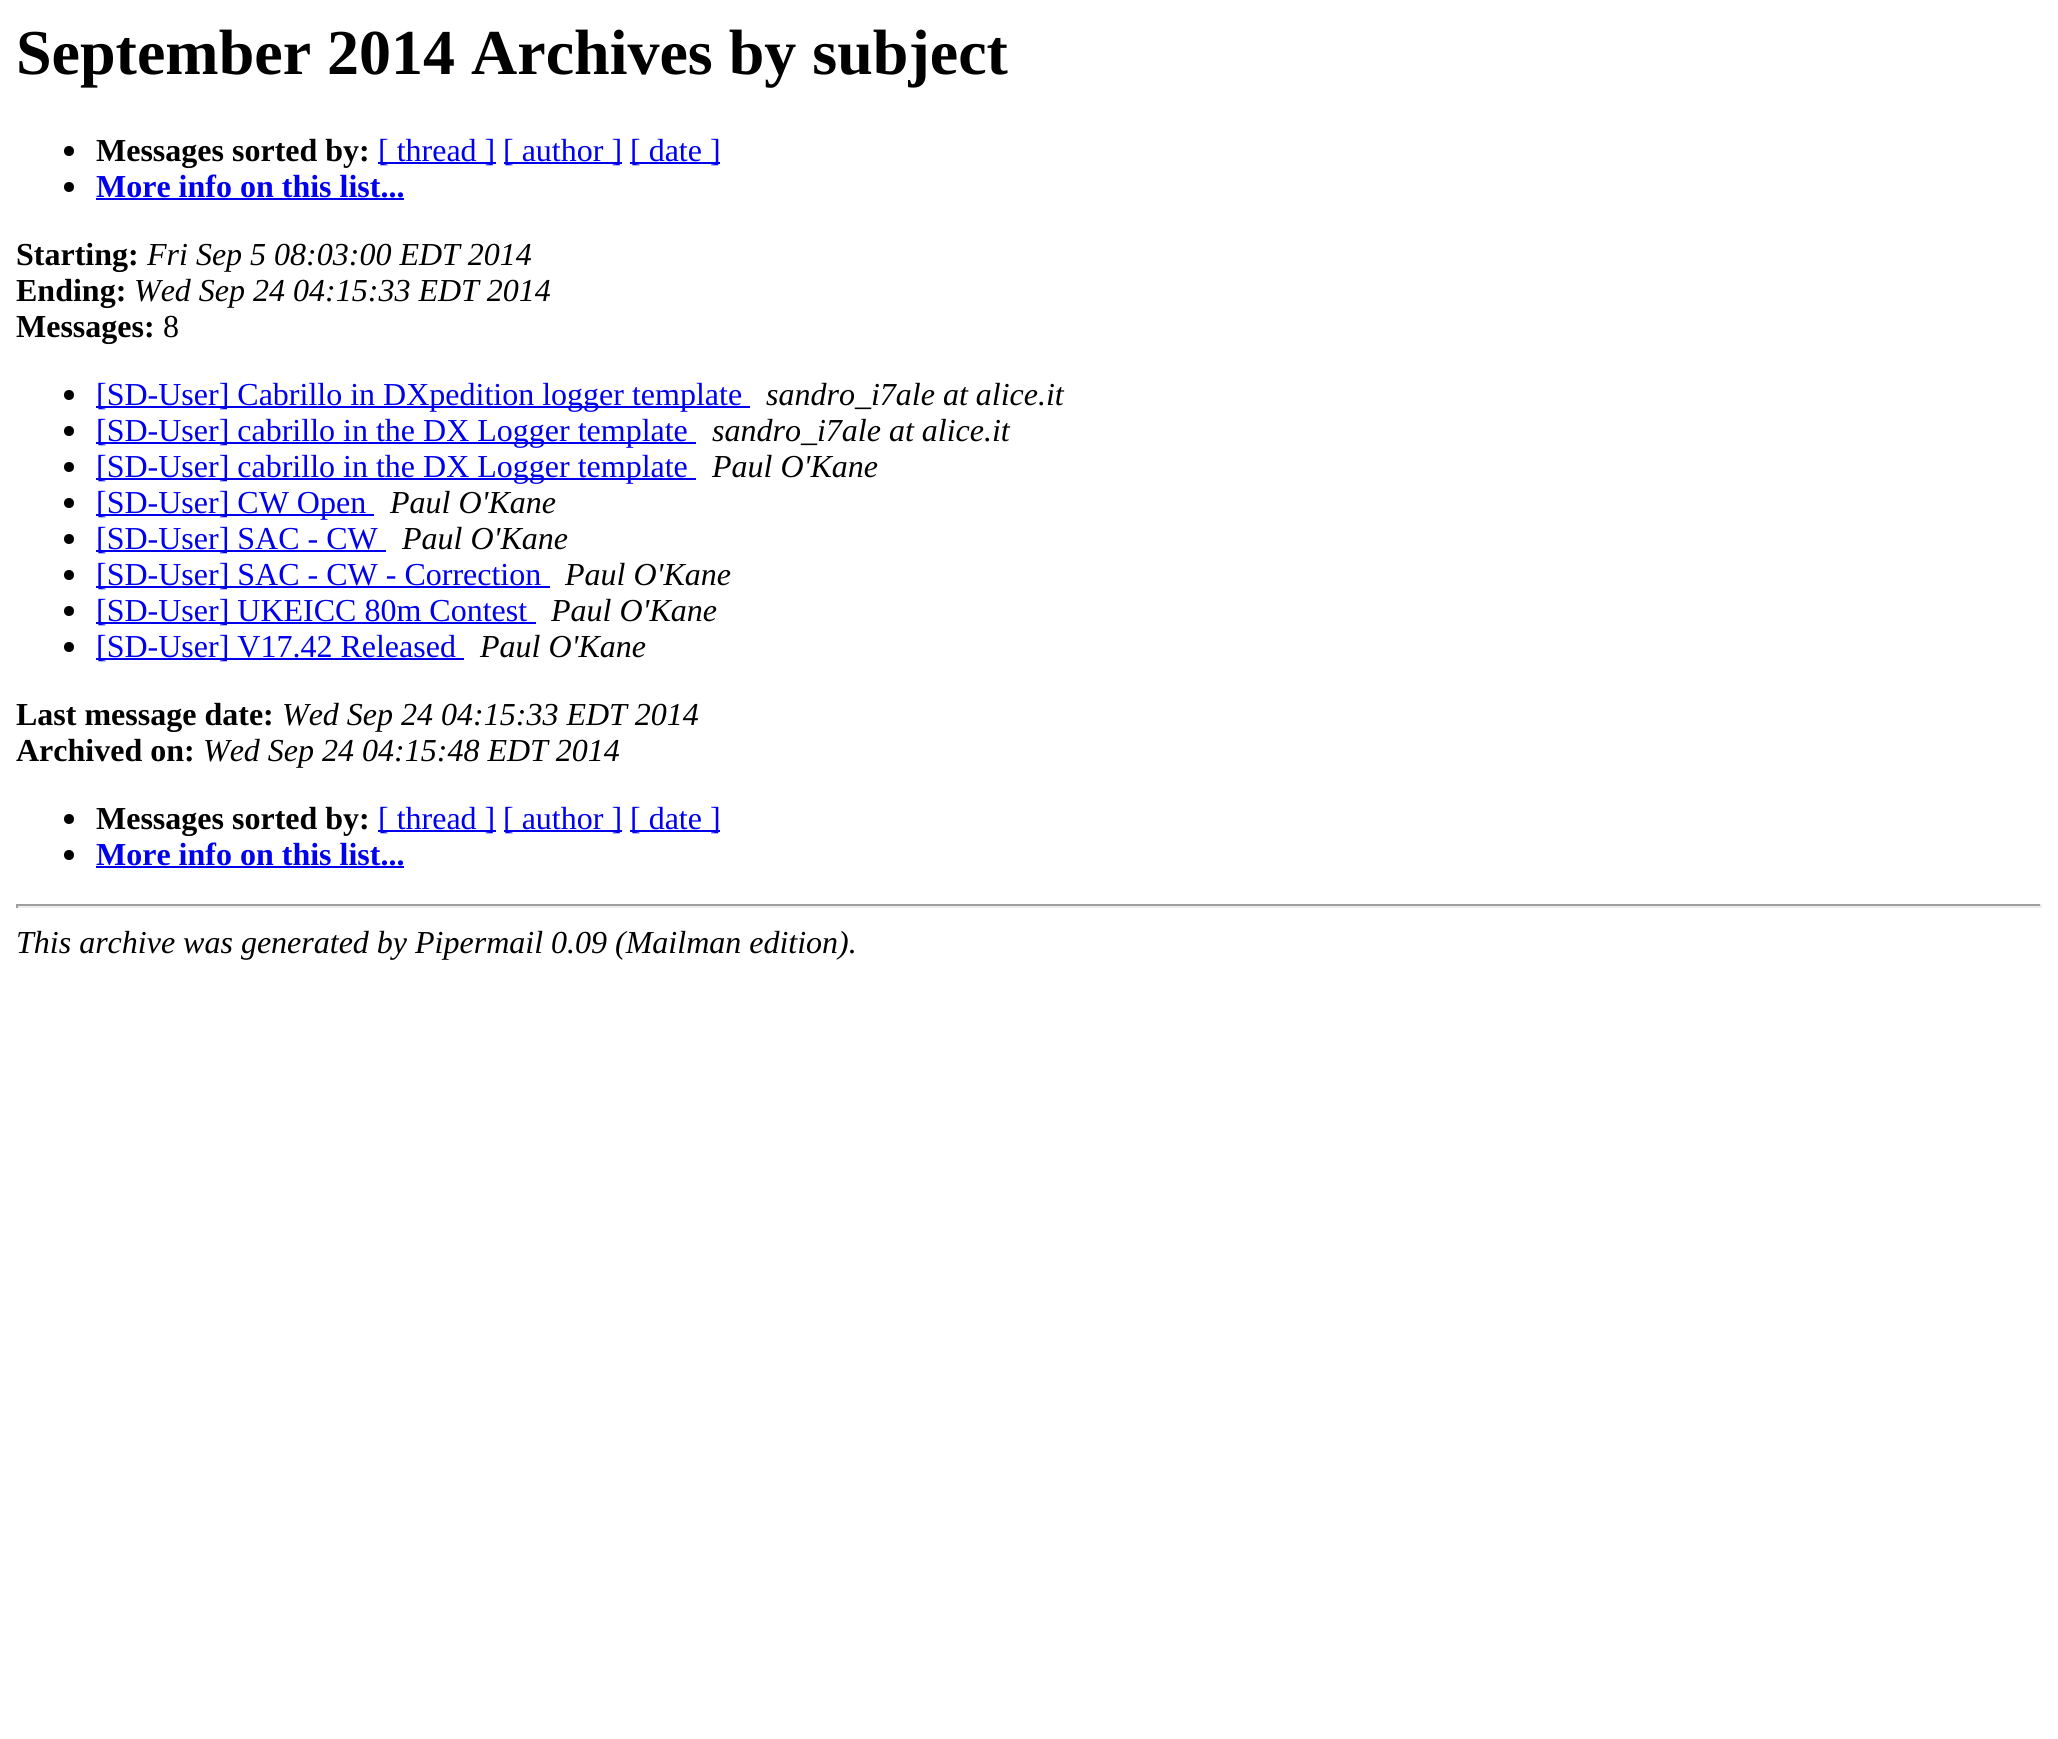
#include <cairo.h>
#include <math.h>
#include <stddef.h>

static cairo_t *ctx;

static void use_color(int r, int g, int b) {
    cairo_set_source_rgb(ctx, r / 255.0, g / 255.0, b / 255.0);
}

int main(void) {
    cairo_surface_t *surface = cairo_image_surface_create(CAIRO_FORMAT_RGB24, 2058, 1739);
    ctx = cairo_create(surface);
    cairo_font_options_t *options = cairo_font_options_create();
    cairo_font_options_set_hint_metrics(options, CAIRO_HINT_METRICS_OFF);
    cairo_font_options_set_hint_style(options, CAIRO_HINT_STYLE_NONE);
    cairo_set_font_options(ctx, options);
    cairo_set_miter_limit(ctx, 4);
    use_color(255, 255, 255);
    cairo_paint(ctx);
    cairo_select_font_face(ctx, "Liberation Serif", CAIRO_FONT_SLANT_NORMAL, CAIRO_FONT_WEIGHT_BOLD);
    cairo_set_font_size(ctx, 64);
    use_color(0, 0, 0);
    cairo_move_to(ctx, 16, 74);
    cairo_show_text(ctx, "September 2014 Archives by subject");
    cairo_new_path(ctx);
    cairo_arc(ctx, 69, 151, 5, 0, 2 * M_PI);
    cairo_fill(ctx);
    cairo_set_font_size(ctx, 32);
    cairo_move_to(ctx, 96, 161);
    cairo_show_text(ctx, "Messages sorted by:");
    use_color(0, 0, 238);
    cairo_rectangle(ctx, 378, 162, 118, 2);
    cairo_fill(ctx);
    cairo_select_font_face(ctx, "Liberation Serif", CAIRO_FONT_SLANT_NORMAL, CAIRO_FONT_WEIGHT_NORMAL);
    cairo_move_to(ctx, 378, 161);
    cairo_show_text(ctx, "[ thread ]");
    cairo_rectangle(ctx, 504, 162, 118, 2);
    cairo_fill(ctx);
    cairo_move_to(ctx, 503, 161);
    cairo_show_text(ctx, "[ author ]");
    cairo_rectangle(ctx, 630, 162, 90, 2);
    cairo_fill(ctx);
    cairo_move_to(ctx, 630, 161);
    cairo_show_text(ctx, "[ date ]");
    use_color(0, 0, 0);
    cairo_new_path(ctx);
    cairo_arc(ctx, 69, 187, 5, 0, 2 * M_PI);
    cairo_fill(ctx);
    cairo_select_font_face(ctx, "Liberation Serif", CAIRO_FONT_SLANT_NORMAL, CAIRO_FONT_WEIGHT_BOLD);
    use_color(0, 0, 238);
    cairo_move_to(ctx, 96, 197);
    cairo_show_text(ctx, "More info on this list...");
    cairo_rectangle(ctx, 96, 198, 308, 2);
    cairo_fill(ctx);
    use_color(0, 0, 0);
    cairo_move_to(ctx, 16, 265);
    cairo_show_text(ctx, "Starting:");
    cairo_select_font_face(ctx, "Liberation Serif", CAIRO_FONT_SLANT_ITALIC, CAIRO_FONT_WEIGHT_NORMAL);
    cairo_move_to(ctx, 147, 265);
    cairo_show_text(ctx, "Fri Sep 5 08:03:00 EDT 2014");
    cairo_select_font_face(ctx, "Liberation Serif", CAIRO_FONT_SLANT_NORMAL, CAIRO_FONT_WEIGHT_BOLD);
    cairo_move_to(ctx, 16, 301);
    cairo_show_text(ctx, "Ending:");
    cairo_select_font_face(ctx, "Liberation Serif", CAIRO_FONT_SLANT_ITALIC, CAIRO_FONT_WEIGHT_NORMAL);
    cairo_move_to(ctx, 134, 301);
    cairo_show_text(ctx, "Wed Sep 24 04:15:33 EDT 2014");
    cairo_select_font_face(ctx, "Liberation Serif", CAIRO_FONT_SLANT_NORMAL, CAIRO_FONT_WEIGHT_BOLD);
    cairo_move_to(ctx, 16, 337);
    cairo_show_text(ctx, "Messages:");
    cairo_select_font_face(ctx, "Liberation Serif", CAIRO_FONT_SLANT_NORMAL, CAIRO_FONT_WEIGHT_NORMAL);
    cairo_move_to(ctx, 163, 337);
    cairo_show_text(ctx, "8");
    cairo_new_path(ctx);
    cairo_arc(ctx, 69, 395, 5, 0, 2 * M_PI);
    cairo_fill(ctx);
    use_color(0, 0, 238);
    cairo_rectangle(ctx, 96, 406, 654, 2);
    cairo_fill(ctx);
    cairo_move_to(ctx, 96, 405);
    cairo_show_text(ctx, "[SD-User] Cabrillo in DXpedition logger template");
    cairo_select_font_face(ctx, "Liberation Serif", CAIRO_FONT_SLANT_ITALIC, CAIRO_FONT_WEIGHT_NORMAL);
    use_color(0, 0, 0);
    cairo_move_to(ctx, 766, 405);
    cairo_show_text(ctx, "sandro_i7ale at alice.it");
    cairo_new_path(ctx);
    cairo_arc(ctx, 69, 431, 5, 0, 2 * M_PI);
    cairo_fill(ctx);
    use_color(0, 0, 238);
    cairo_rectangle(ctx, 96, 442, 600, 2);
    cairo_fill(ctx);
    cairo_select_font_face(ctx, "Liberation Serif", CAIRO_FONT_SLANT_NORMAL, CAIRO_FONT_WEIGHT_NORMAL);
    cairo_move_to(ctx, 96, 441);
    cairo_show_text(ctx, "[SD-User] cabrillo in the DX Logger template");
    cairo_select_font_face(ctx, "Liberation Serif", CAIRO_FONT_SLANT_ITALIC, CAIRO_FONT_WEIGHT_NORMAL);
    use_color(0, 0, 0);
    cairo_move_to(ctx, 712, 441);
    cairo_show_text(ctx, "sandro_i7ale at alice.it");
    cairo_new_path(ctx);
    cairo_arc(ctx, 69, 467, 5, 0, 2 * M_PI);
    cairo_fill(ctx);
    use_color(0, 0, 238);
    cairo_rectangle(ctx, 96, 478, 600, 2);
    cairo_fill(ctx);
    cairo_select_font_face(ctx, "Liberation Serif", CAIRO_FONT_SLANT_NORMAL, CAIRO_FONT_WEIGHT_NORMAL);
    cairo_move_to(ctx, 96, 477);
    cairo_show_text(ctx, "[SD-User] cabrillo in the DX Logger template");
    cairo_select_font_face(ctx, "Liberation Serif", CAIRO_FONT_SLANT_ITALIC, CAIRO_FONT_WEIGHT_NORMAL);
    use_color(0, 0, 0);
    cairo_move_to(ctx, 712, 477);
    cairo_show_text(ctx, "Paul O'Kane");
    cairo_new_path(ctx);
    cairo_arc(ctx, 69, 503, 5, 0, 2 * M_PI);
    cairo_fill(ctx);
    use_color(0, 0, 238);
    cairo_rectangle(ctx, 96, 514, 278, 2);
    cairo_fill(ctx);
    cairo_select_font_face(ctx, "Liberation Serif", CAIRO_FONT_SLANT_NORMAL, CAIRO_FONT_WEIGHT_NORMAL);
    cairo_move_to(ctx, 96, 513);
    cairo_show_text(ctx, "[SD-User] CW Open");
    cairo_select_font_face(ctx, "Liberation Serif", CAIRO_FONT_SLANT_ITALIC, CAIRO_FONT_WEIGHT_NORMAL);
    use_color(0, 0, 0);
    cairo_move_to(ctx, 390, 513);
    cairo_show_text(ctx, "Paul O'Kane");
    cairo_new_path(ctx);
    cairo_arc(ctx, 69, 539, 5, 0, 2 * M_PI);
    cairo_fill(ctx);
    use_color(0, 0, 238);
    cairo_rectangle(ctx, 96, 550, 290, 2);
    cairo_fill(ctx);
    cairo_select_font_face(ctx, "Liberation Serif", CAIRO_FONT_SLANT_NORMAL, CAIRO_FONT_WEIGHT_NORMAL);
    cairo_move_to(ctx, 96, 549);
    cairo_show_text(ctx, "[SD-User] SAC - CW");
    cairo_select_font_face(ctx, "Liberation Serif", CAIRO_FONT_SLANT_ITALIC, CAIRO_FONT_WEIGHT_NORMAL);
    use_color(0, 0, 0);
    cairo_move_to(ctx, 402, 549);
    cairo_show_text(ctx, "Paul O'Kane");
    cairo_new_path(ctx);
    cairo_arc(ctx, 69, 575, 5, 0, 2 * M_PI);
    cairo_fill(ctx);
    use_color(0, 0, 238);
    cairo_rectangle(ctx, 96, 586, 454, 2);
    cairo_fill(ctx);
    cairo_select_font_face(ctx, "Liberation Serif", CAIRO_FONT_SLANT_NORMAL, CAIRO_FONT_WEIGHT_NORMAL);
    cairo_move_to(ctx, 96, 585);
    cairo_show_text(ctx, "[SD-User] SAC - CW - Correction");
    cairo_select_font_face(ctx, "Liberation Serif", CAIRO_FONT_SLANT_ITALIC, CAIRO_FONT_WEIGHT_NORMAL);
    use_color(0, 0, 0);
    cairo_move_to(ctx, 565, 585);
    cairo_show_text(ctx, "Paul O'Kane");
    cairo_new_path(ctx);
    cairo_arc(ctx, 69, 611, 5, 0, 2 * M_PI);
    cairo_fill(ctx);
    use_color(0, 0, 238);
    cairo_rectangle(ctx, 96, 622, 440, 2);
    cairo_fill(ctx);
    cairo_select_font_face(ctx, "Liberation Serif", CAIRO_FONT_SLANT_NORMAL, CAIRO_FONT_WEIGHT_NORMAL);
    cairo_move_to(ctx, 96, 621);
    cairo_show_text(ctx, "[SD-User] UKEICC 80m Contest");
    cairo_select_font_face(ctx, "Liberation Serif", CAIRO_FONT_SLANT_ITALIC, CAIRO_FONT_WEIGHT_NORMAL);
    use_color(0, 0, 0);
    cairo_move_to(ctx, 551, 621);
    cairo_show_text(ctx, "Paul O'Kane");
    cairo_new_path(ctx);
    cairo_arc(ctx, 69, 647, 5, 0, 2 * M_PI);
    cairo_fill(ctx);
    use_color(0, 0, 238);
    cairo_rectangle(ctx, 96, 658, 368, 2);
    cairo_fill(ctx);
    cairo_select_font_face(ctx, "Liberation Serif", CAIRO_FONT_SLANT_NORMAL, CAIRO_FONT_WEIGHT_NORMAL);
    cairo_move_to(ctx, 96, 657);
    cairo_show_text(ctx, "[SD-User] V17.42 Released");
    cairo_select_font_face(ctx, "Liberation Serif", CAIRO_FONT_SLANT_ITALIC, CAIRO_FONT_WEIGHT_NORMAL);
    use_color(0, 0, 0);
    cairo_move_to(ctx, 480, 657);
    cairo_show_text(ctx, "Paul O'Kane");
    cairo_select_font_face(ctx, "Liberation Serif", CAIRO_FONT_SLANT_NORMAL, CAIRO_FONT_WEIGHT_BOLD);
    cairo_move_to(ctx, 16, 725);
    cairo_show_text(ctx, "Last message date:");
    cairo_select_font_face(ctx, "Liberation Serif", CAIRO_FONT_SLANT_ITALIC, CAIRO_FONT_WEIGHT_NORMAL);
    cairo_move_to(ctx, 282, 725);
    cairo_show_text(ctx, "Wed Sep 24 04:15:33 EDT 2014");
    cairo_select_font_face(ctx, "Liberation Serif", CAIRO_FONT_SLANT_NORMAL, CAIRO_FONT_WEIGHT_BOLD);
    cairo_move_to(ctx, 16, 761);
    cairo_show_text(ctx, "Archived on:");
    cairo_select_font_face(ctx, "Liberation Serif", CAIRO_FONT_SLANT_ITALIC, CAIRO_FONT_WEIGHT_NORMAL);
    cairo_move_to(ctx, 203, 761);
    cairo_show_text(ctx, "Wed Sep 24 04:15:48 EDT 2014");
    cairo_new_path(ctx);
    cairo_arc(ctx, 69, 819, 5, 0, 2 * M_PI);
    cairo_fill(ctx);
    cairo_select_font_face(ctx, "Liberation Serif", CAIRO_FONT_SLANT_NORMAL, CAIRO_FONT_WEIGHT_BOLD);
    cairo_move_to(ctx, 96, 829);
    cairo_show_text(ctx, "Messages sorted by:");
    use_color(0, 0, 238);
    cairo_rectangle(ctx, 378, 830, 118, 2);
    cairo_fill(ctx);
    cairo_select_font_face(ctx, "Liberation Serif", CAIRO_FONT_SLANT_NORMAL, CAIRO_FONT_WEIGHT_NORMAL);
    cairo_move_to(ctx, 378, 829);
    cairo_show_text(ctx, "[ thread ]");
    cairo_rectangle(ctx, 504, 830, 118, 2);
    cairo_fill(ctx);
    cairo_move_to(ctx, 503, 829);
    cairo_show_text(ctx, "[ author ]");
    cairo_rectangle(ctx, 630, 830, 90, 2);
    cairo_fill(ctx);
    cairo_move_to(ctx, 630, 829);
    cairo_show_text(ctx, "[ date ]");
    use_color(0, 0, 0);
    cairo_new_path(ctx);
    cairo_arc(ctx, 69, 855, 5, 0, 2 * M_PI);
    cairo_fill(ctx);
    cairo_select_font_face(ctx, "Liberation Serif", CAIRO_FONT_SLANT_NORMAL, CAIRO_FONT_WEIGHT_BOLD);
    use_color(0, 0, 238);
    cairo_move_to(ctx, 96, 865);
    cairo_show_text(ctx, "More info on this list...");
    cairo_rectangle(ctx, 96, 866, 308, 2);
    cairo_fill(ctx);
    use_color(159, 159, 159);
    cairo_rectangle(ctx, 16, 904, 2026, 2);
    cairo_fill(ctx);
    use_color(238, 238, 238);
    cairo_rectangle(ctx, 2040, 904, 2, 4);
    cairo_fill(ctx);
    cairo_rectangle(ctx, 16, 906, 2026, 2);
    cairo_fill(ctx);
    use_color(159, 159, 159);
    cairo_rectangle(ctx, 16, 904, 2, 4);
    cairo_fill(ctx);
    cairo_select_font_face(ctx, "Liberation Serif", CAIRO_FONT_SLANT_ITALIC, CAIRO_FONT_WEIGHT_NORMAL);
    use_color(0, 0, 0);
    cairo_move_to(ctx, 16, 953);
    cairo_show_text(ctx, "This archive was generated by Pipermail 0.09 (Mailman edition).");
    cairo_surface_write_to_png(surface, "result.png");
    cairo_font_options_destroy(options);
    cairo_destroy(ctx);
    cairo_surface_destroy(surface);
    return 0;
}
